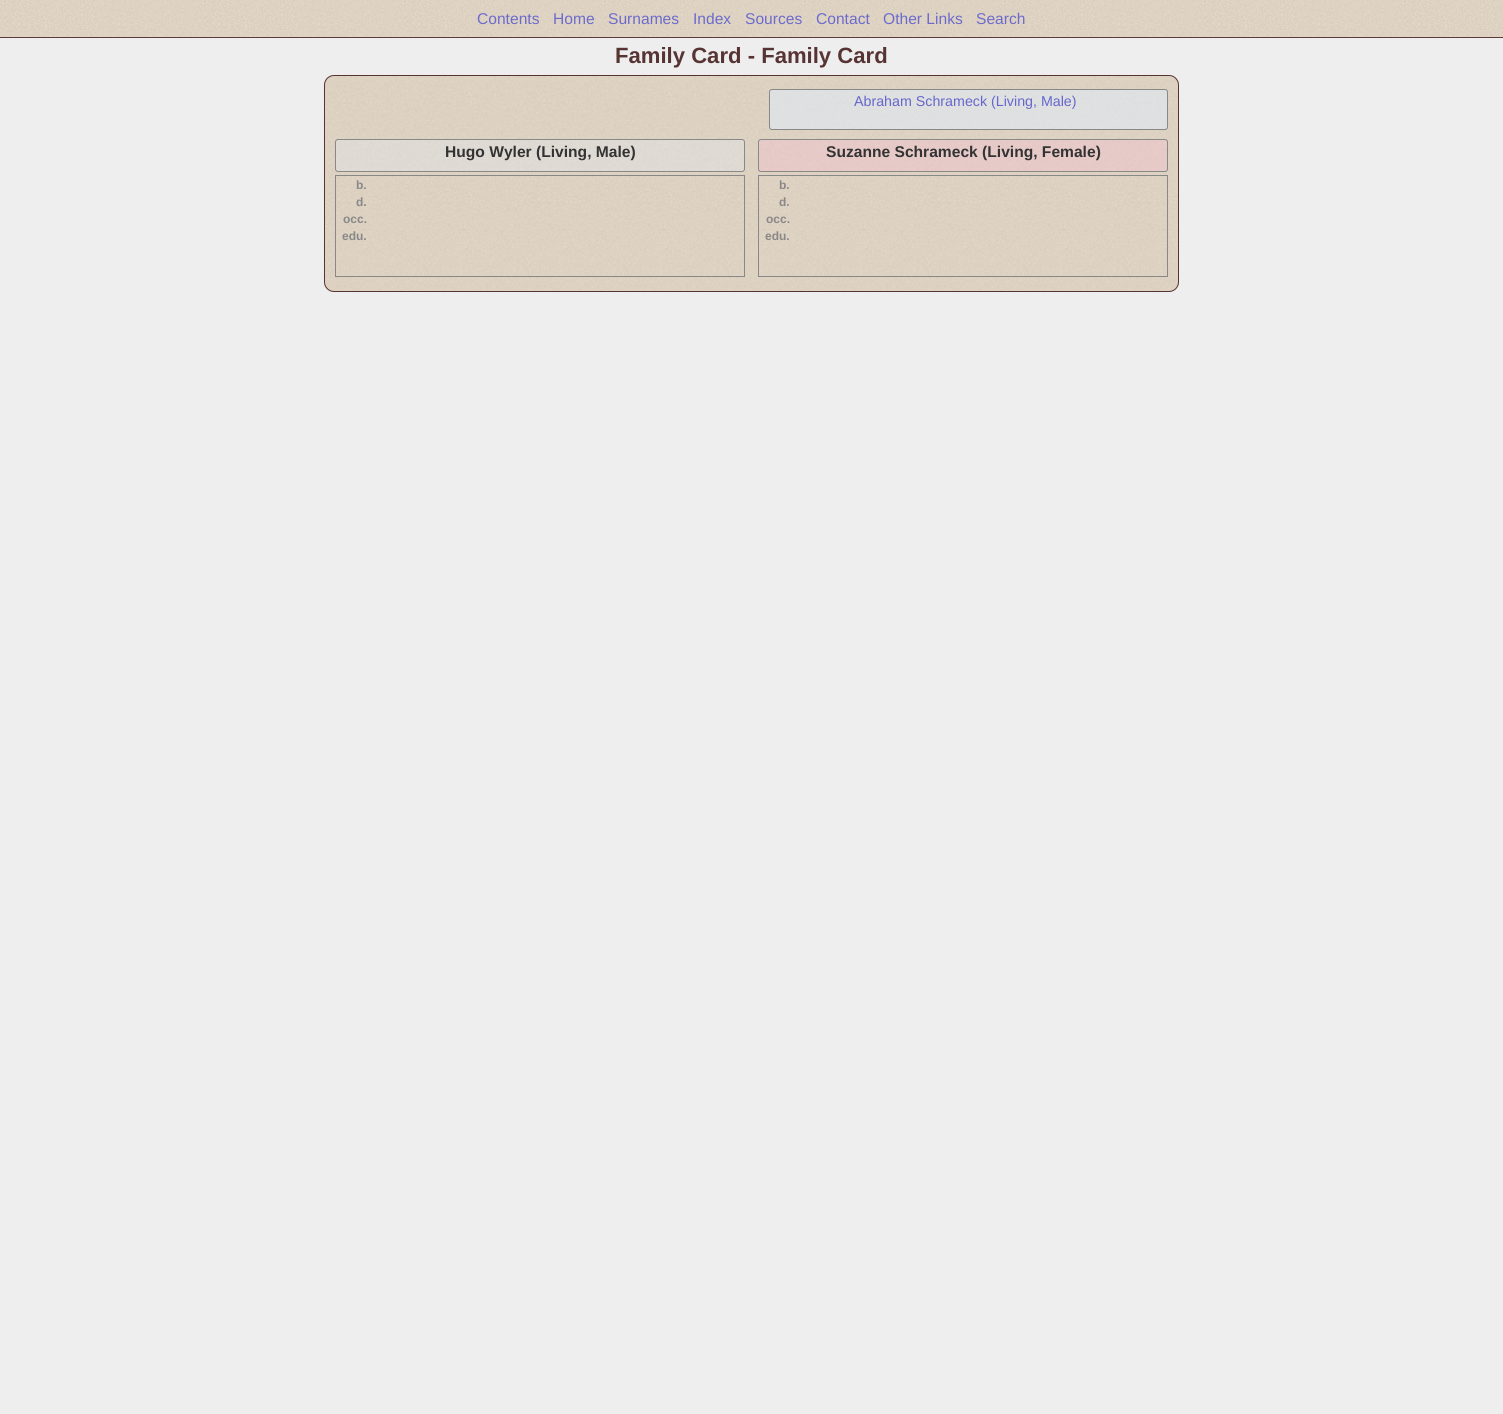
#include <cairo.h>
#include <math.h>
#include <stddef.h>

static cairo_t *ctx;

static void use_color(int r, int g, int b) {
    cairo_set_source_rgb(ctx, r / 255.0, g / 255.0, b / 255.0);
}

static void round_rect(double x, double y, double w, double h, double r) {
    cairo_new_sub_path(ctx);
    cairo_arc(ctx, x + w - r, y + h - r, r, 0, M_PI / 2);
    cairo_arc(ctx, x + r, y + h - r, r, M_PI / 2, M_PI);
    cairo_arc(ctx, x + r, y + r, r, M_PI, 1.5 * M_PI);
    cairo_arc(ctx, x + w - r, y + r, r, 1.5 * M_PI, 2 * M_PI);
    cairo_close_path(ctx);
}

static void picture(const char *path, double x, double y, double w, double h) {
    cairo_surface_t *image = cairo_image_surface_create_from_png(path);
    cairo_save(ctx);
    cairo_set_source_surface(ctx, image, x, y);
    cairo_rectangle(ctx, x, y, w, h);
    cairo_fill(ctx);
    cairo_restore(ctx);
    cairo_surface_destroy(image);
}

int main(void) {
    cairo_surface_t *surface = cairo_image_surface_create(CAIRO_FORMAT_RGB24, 1503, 1414);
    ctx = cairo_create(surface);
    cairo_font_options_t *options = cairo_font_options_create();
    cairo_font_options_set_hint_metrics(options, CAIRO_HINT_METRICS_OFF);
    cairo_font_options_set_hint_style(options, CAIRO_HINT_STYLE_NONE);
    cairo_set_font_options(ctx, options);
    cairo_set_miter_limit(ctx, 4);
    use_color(238, 238, 238);
    cairo_paint(ctx);
    picture("img1.png", 0, 0, 1503, 38);
    picture("img2.png", 0, 37, 1503, 1);
    cairo_set_source_rgba(ctx, 0.337, 0.204, 0.2, 0.95);
    cairo_rectangle(ctx, 0, 37, 1503, 1);
    cairo_fill(ctx);
    cairo_select_font_face(ctx, "Liberation Sans", CAIRO_FONT_SLANT_NORMAL, CAIRO_FONT_WEIGHT_NORMAL);
    cairo_set_font_size(ctx, 15.6);
    use_color(108, 107, 204);
    cairo_move_to(ctx, 477, 24);
    cairo_show_text(ctx, "Contents");
    cairo_move_to(ctx, 553, 24);
    cairo_show_text(ctx, "Home");
    cairo_move_to(ctx, 608, 24);
    cairo_show_text(ctx, "Surnames");
    cairo_move_to(ctx, 693, 24);
    cairo_show_text(ctx, "Index");
    cairo_move_to(ctx, 745, 24);
    cairo_show_text(ctx, "Sources");
    cairo_move_to(ctx, 816, 24);
    cairo_show_text(ctx, "Contact");
    cairo_move_to(ctx, 883, 24);
    cairo_show_text(ctx, "Other Links");
    cairo_move_to(ctx, 976, 24);
    cairo_show_text(ctx, "Search");
    cairo_select_font_face(ctx, "Liberation Sans", CAIRO_FONT_SLANT_NORMAL, CAIRO_FONT_WEIGHT_BOLD);
    cairo_set_font_size(ctx, 22.1);
    use_color(86, 52, 51);
    cairo_move_to(ctx, 615, 63);
    cairo_show_text(ctx, "Family Card - Family Card");
    picture("img3.png", 324, 75, 855, 217);
    round_rect(324.5, 75.5, 854, 216, 9.5);
    cairo_set_line_width(ctx, 1);
    cairo_stroke(ctx);
    cairo_set_source_rgba(ctx, 0.878, 0.937, 0.996, 0.51);
    round_rect(769.5, 89.5, 398, 40, 2.5);
    cairo_fill_preserve(ctx);
    use_color(136, 136, 136);
    cairo_stroke(ctx);
    cairo_select_font_face(ctx, "Liberation Sans", CAIRO_FONT_SLANT_NORMAL, CAIRO_FONT_WEIGHT_NORMAL);
    cairo_set_font_size(ctx, 14.25);
    use_color(102, 102, 204);
    cairo_move_to(ctx, 854, 106);
    cairo_show_text(ctx, "Abraham Schrameck (Living, Male)");
    cairo_set_source_rgba(ctx, 0.878, 0.937, 0.996, 0.3);
    round_rect(335.5, 139.5, 409, 32, 2.5);
    cairo_fill_preserve(ctx);
    use_color(136, 136, 136);
    cairo_stroke(ctx);
    cairo_select_font_face(ctx, "Liberation Sans", CAIRO_FONT_SLANT_NORMAL, CAIRO_FONT_WEIGHT_BOLD);
    cairo_set_font_size(ctx, 15.6);
    use_color(51, 51, 51);
    cairo_move_to(ctx, 445, 157);
    cairo_show_text(ctx, "Hugo Wyler (Living, Male)");
    cairo_set_source_rgba(ctx, 0.988, 0.718, 0.839, 0.3);
    round_rect(758.5, 139.5, 409, 32, 2.5);
    cairo_fill_preserve(ctx);
    use_color(136, 136, 136);
    cairo_stroke(ctx);
    use_color(51, 51, 51);
    cairo_move_to(ctx, 826, 157);
    cairo_show_text(ctx, "Suzanne Schrameck (Living, Female)");
    cairo_rectangle(ctx, 335.5, 175.5, 409, 101);
    use_color(136, 136, 136);
    cairo_stroke(ctx);
    cairo_set_font_size(ctx, 12);
    cairo_move_to(ctx, 356, 189);
    cairo_show_text(ctx, "b.");
    cairo_move_to(ctx, 356, 206);
    cairo_show_text(ctx, "d.");
    cairo_move_to(ctx, 343, 223);
    cairo_show_text(ctx, "occ.");
    cairo_move_to(ctx, 342, 240);
    cairo_show_text(ctx, "edu.");
    cairo_rectangle(ctx, 758.5, 175.5, 409, 101);
    cairo_stroke(ctx);
    cairo_move_to(ctx, 779, 189);
    cairo_show_text(ctx, "b.");
    cairo_move_to(ctx, 779, 206);
    cairo_show_text(ctx, "d.");
    cairo_move_to(ctx, 766, 223);
    cairo_show_text(ctx, "occ.");
    cairo_move_to(ctx, 765, 240);
    cairo_show_text(ctx, "edu.");
    cairo_surface_write_to_png(surface, "result.png");
    cairo_font_options_destroy(options);
    cairo_destroy(ctx);
    cairo_surface_destroy(surface);
    return 0;
}
